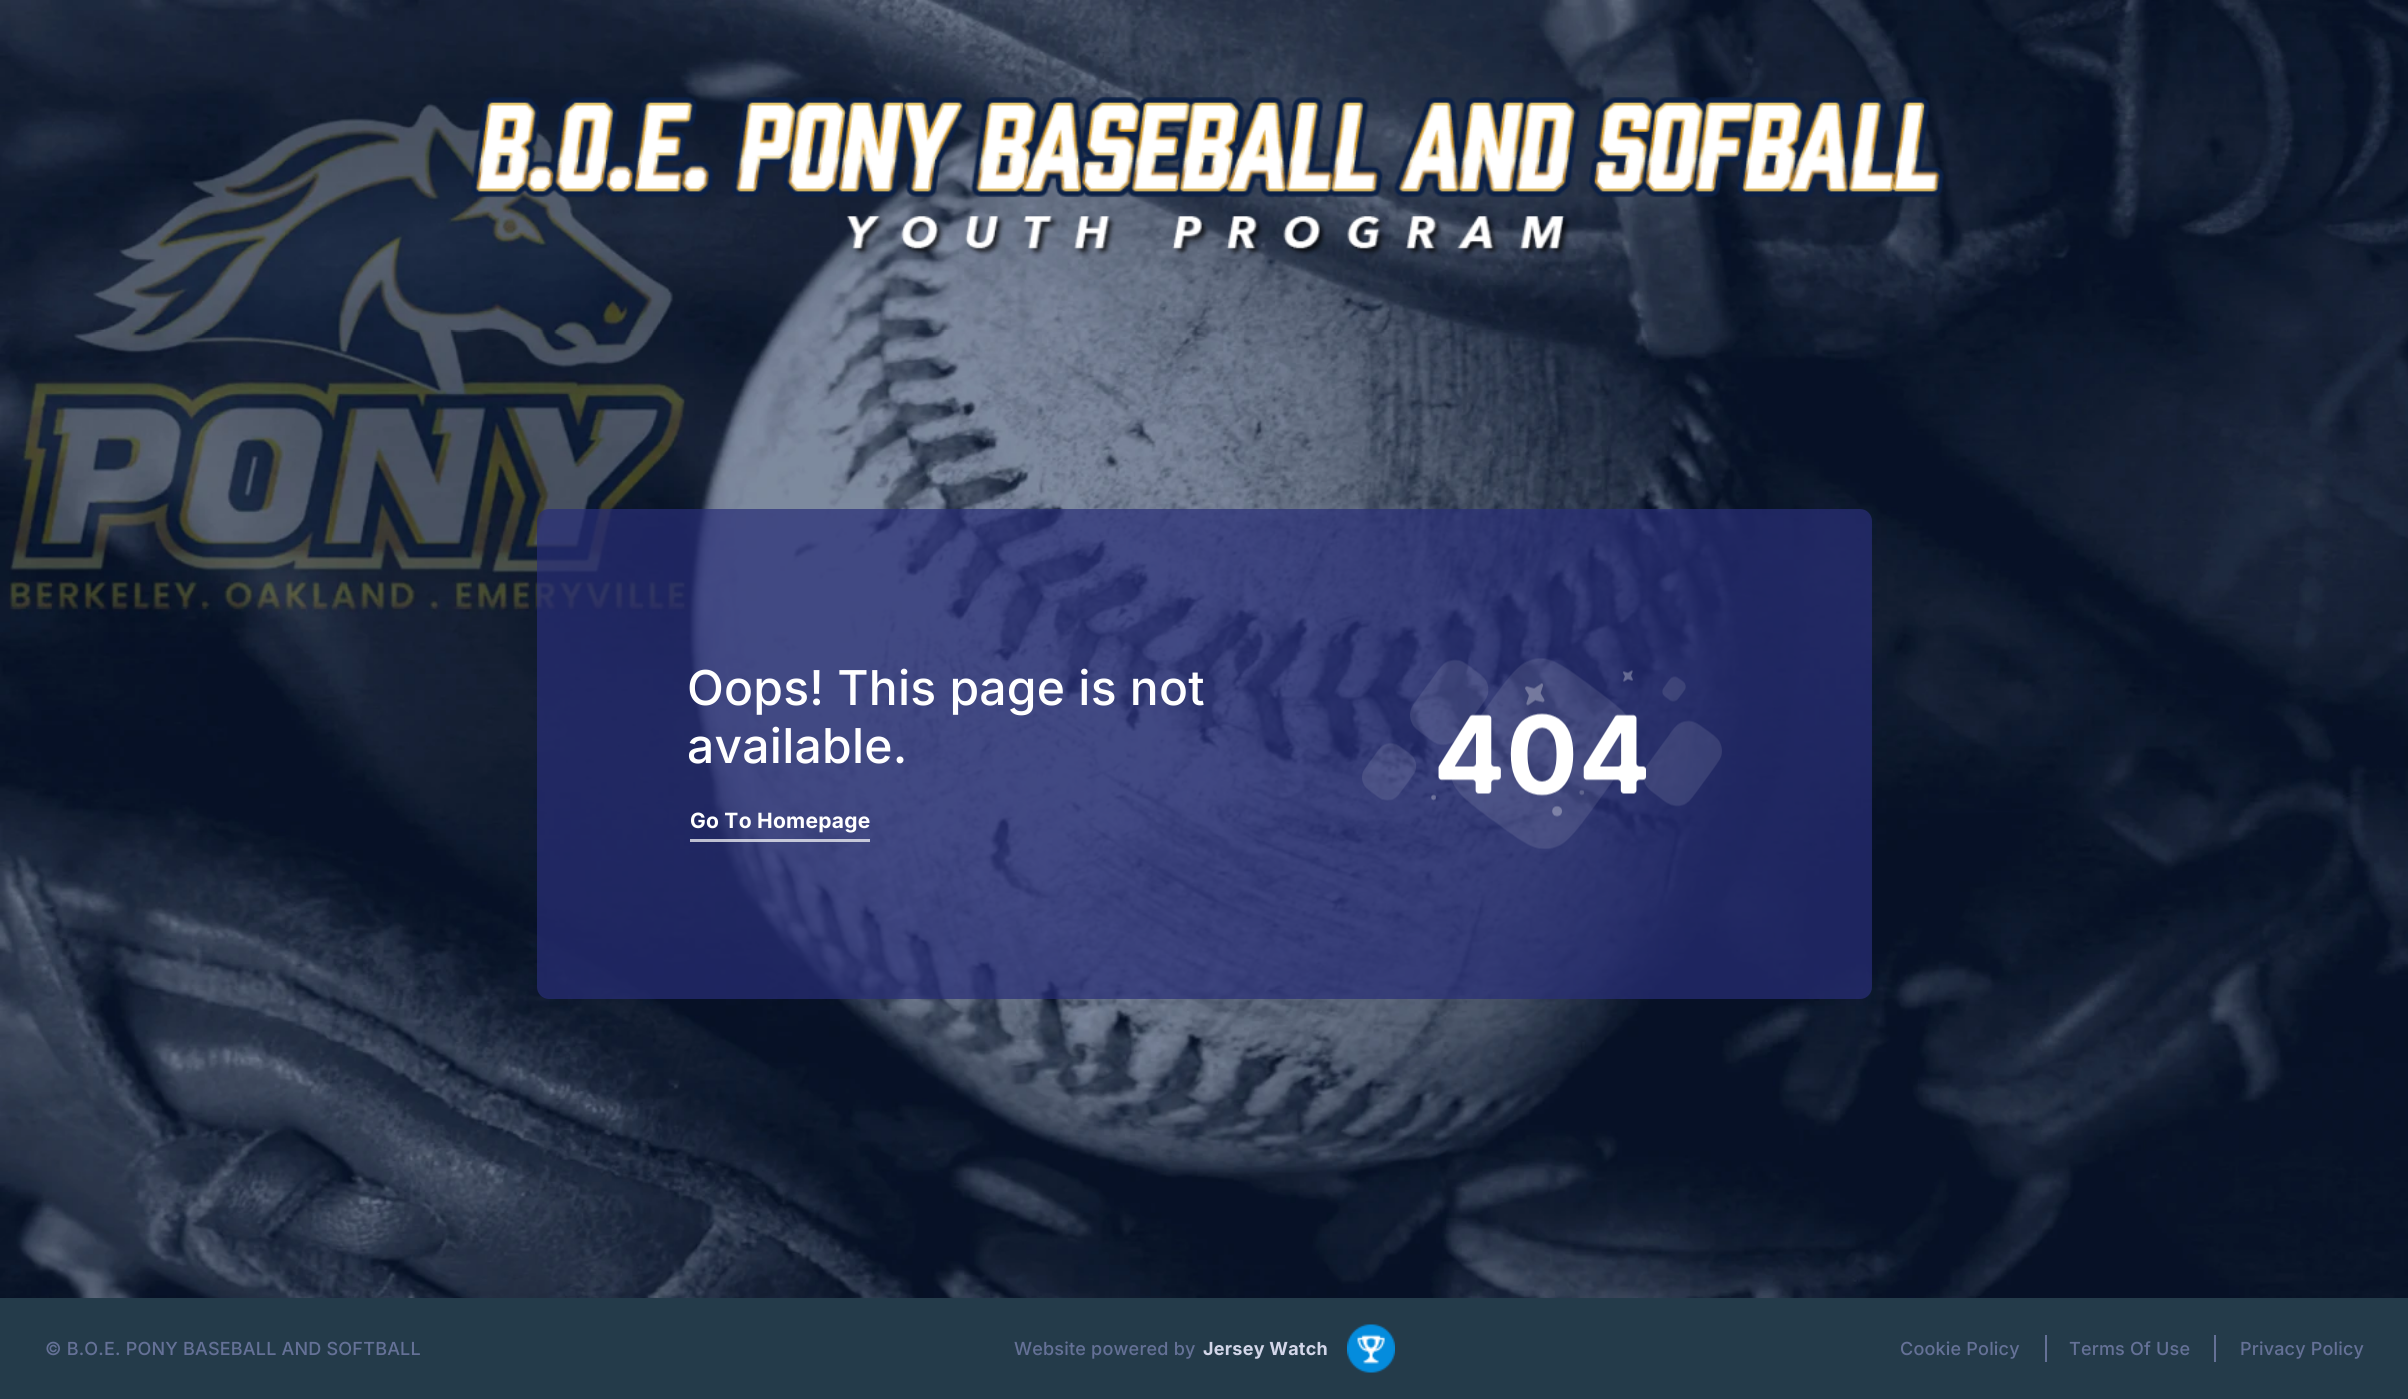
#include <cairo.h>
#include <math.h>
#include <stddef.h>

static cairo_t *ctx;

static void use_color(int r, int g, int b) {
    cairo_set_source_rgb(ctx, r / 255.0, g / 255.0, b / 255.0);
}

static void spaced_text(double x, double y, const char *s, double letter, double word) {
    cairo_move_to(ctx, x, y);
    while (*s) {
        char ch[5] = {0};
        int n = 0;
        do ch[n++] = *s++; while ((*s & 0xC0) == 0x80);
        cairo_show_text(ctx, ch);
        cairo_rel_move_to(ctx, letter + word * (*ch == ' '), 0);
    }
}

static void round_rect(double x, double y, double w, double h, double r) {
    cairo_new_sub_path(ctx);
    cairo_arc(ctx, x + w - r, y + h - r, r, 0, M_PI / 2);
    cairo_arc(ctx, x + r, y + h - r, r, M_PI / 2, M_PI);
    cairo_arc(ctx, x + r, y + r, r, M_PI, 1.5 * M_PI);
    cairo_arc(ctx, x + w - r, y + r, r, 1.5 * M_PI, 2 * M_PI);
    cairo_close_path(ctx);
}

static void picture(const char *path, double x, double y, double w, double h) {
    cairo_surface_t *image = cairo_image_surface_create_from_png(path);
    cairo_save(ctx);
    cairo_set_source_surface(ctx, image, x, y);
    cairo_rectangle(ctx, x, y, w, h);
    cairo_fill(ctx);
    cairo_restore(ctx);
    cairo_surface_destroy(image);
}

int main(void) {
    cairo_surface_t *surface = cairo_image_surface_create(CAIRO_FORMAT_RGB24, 2408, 1399);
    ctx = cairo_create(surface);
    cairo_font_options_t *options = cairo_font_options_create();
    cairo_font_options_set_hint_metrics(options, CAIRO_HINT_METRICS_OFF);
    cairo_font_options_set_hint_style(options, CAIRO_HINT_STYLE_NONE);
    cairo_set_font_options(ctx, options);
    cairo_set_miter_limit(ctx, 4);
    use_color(36, 59, 74);
    cairo_paint(ctx);
    picture("img1.png", 0, 0, 2408, 1298);
    picture("img2.png", 471, 97, 1474, 159);
    cairo_set_source_rgba(ctx, 0.157, 0.18, 0.471, 0.7);
    round_rect(537, 509, 1335, 490, 12);
    cairo_fill(ctx);
    cairo_select_font_face(ctx, "Inter Medium", CAIRO_FONT_SLANT_NORMAL, CAIRO_FONT_WEIGHT_NORMAL);
    cairo_set_font_size(ctx, 48);
    use_color(255, 255, 255);
    spaced_text(687, 705, "Oops! This page is not", 0.25, 0);
    spaced_text(687, 763, "available.", 0.25, 0);
    cairo_select_font_face(ctx, "Inter", CAIRO_FONT_SLANT_NORMAL, CAIRO_FONT_WEIGHT_BOLD);
    cairo_set_font_size(ctx, 21);
    spaced_text(690, 828, "Go To Homepage", 0.25, 0);
    cairo_set_source_rgba(ctx, 1, 1, 1, 0.7);
    cairo_rectangle(ctx, 690, 839, 180, 3);
    cairo_fill(ctx);
    picture("img3.png", 1362, 658, 360, 191);
    cairo_select_font_face(ctx, "Inter Medium", CAIRO_FONT_SLANT_NORMAL, CAIRO_FONT_WEIGHT_NORMAL);
    cairo_set_font_size(ctx, 18);
    use_color(101, 113, 151);
    spaced_text(45, 1355, "© B.O.E. PONY BASEBALL AND SOFTBALL", 0.2, 0);
    spaced_text(1014, 1355, "Website powered by", 0.2, 0);
    cairo_select_font_face(ctx, "Inter", CAIRO_FONT_SLANT_NORMAL, CAIRO_FONT_WEIGHT_BOLD);
    use_color(211, 214, 233);
    spaced_text(1203, 1355, "Jersey Watch", 0.25, 0);
    picture("img4.png", 1347, 1324, 48, 49);
    cairo_select_font_face(ctx, "Inter Medium", CAIRO_FONT_SLANT_NORMAL, CAIRO_FONT_WEIGHT_NORMAL);
    use_color(101, 113, 151);
    spaced_text(1900, 1355, "Cookie Policy", 0.2, 0);
    cairo_rectangle(ctx, 2045, 1335, 2, 27);
    cairo_fill(ctx);
    spaced_text(2069, 1355, "Terms Of Use", 0.2, 0);
    cairo_rectangle(ctx, 2214, 1335, 2, 27);
    cairo_fill(ctx);
    spaced_text(2240, 1355, "Privacy Policy", 0.2, 0);
    cairo_surface_write_to_png(surface, "result.png");
    cairo_font_options_destroy(options);
    cairo_destroy(ctx);
    cairo_surface_destroy(surface);
    return 0;
}
